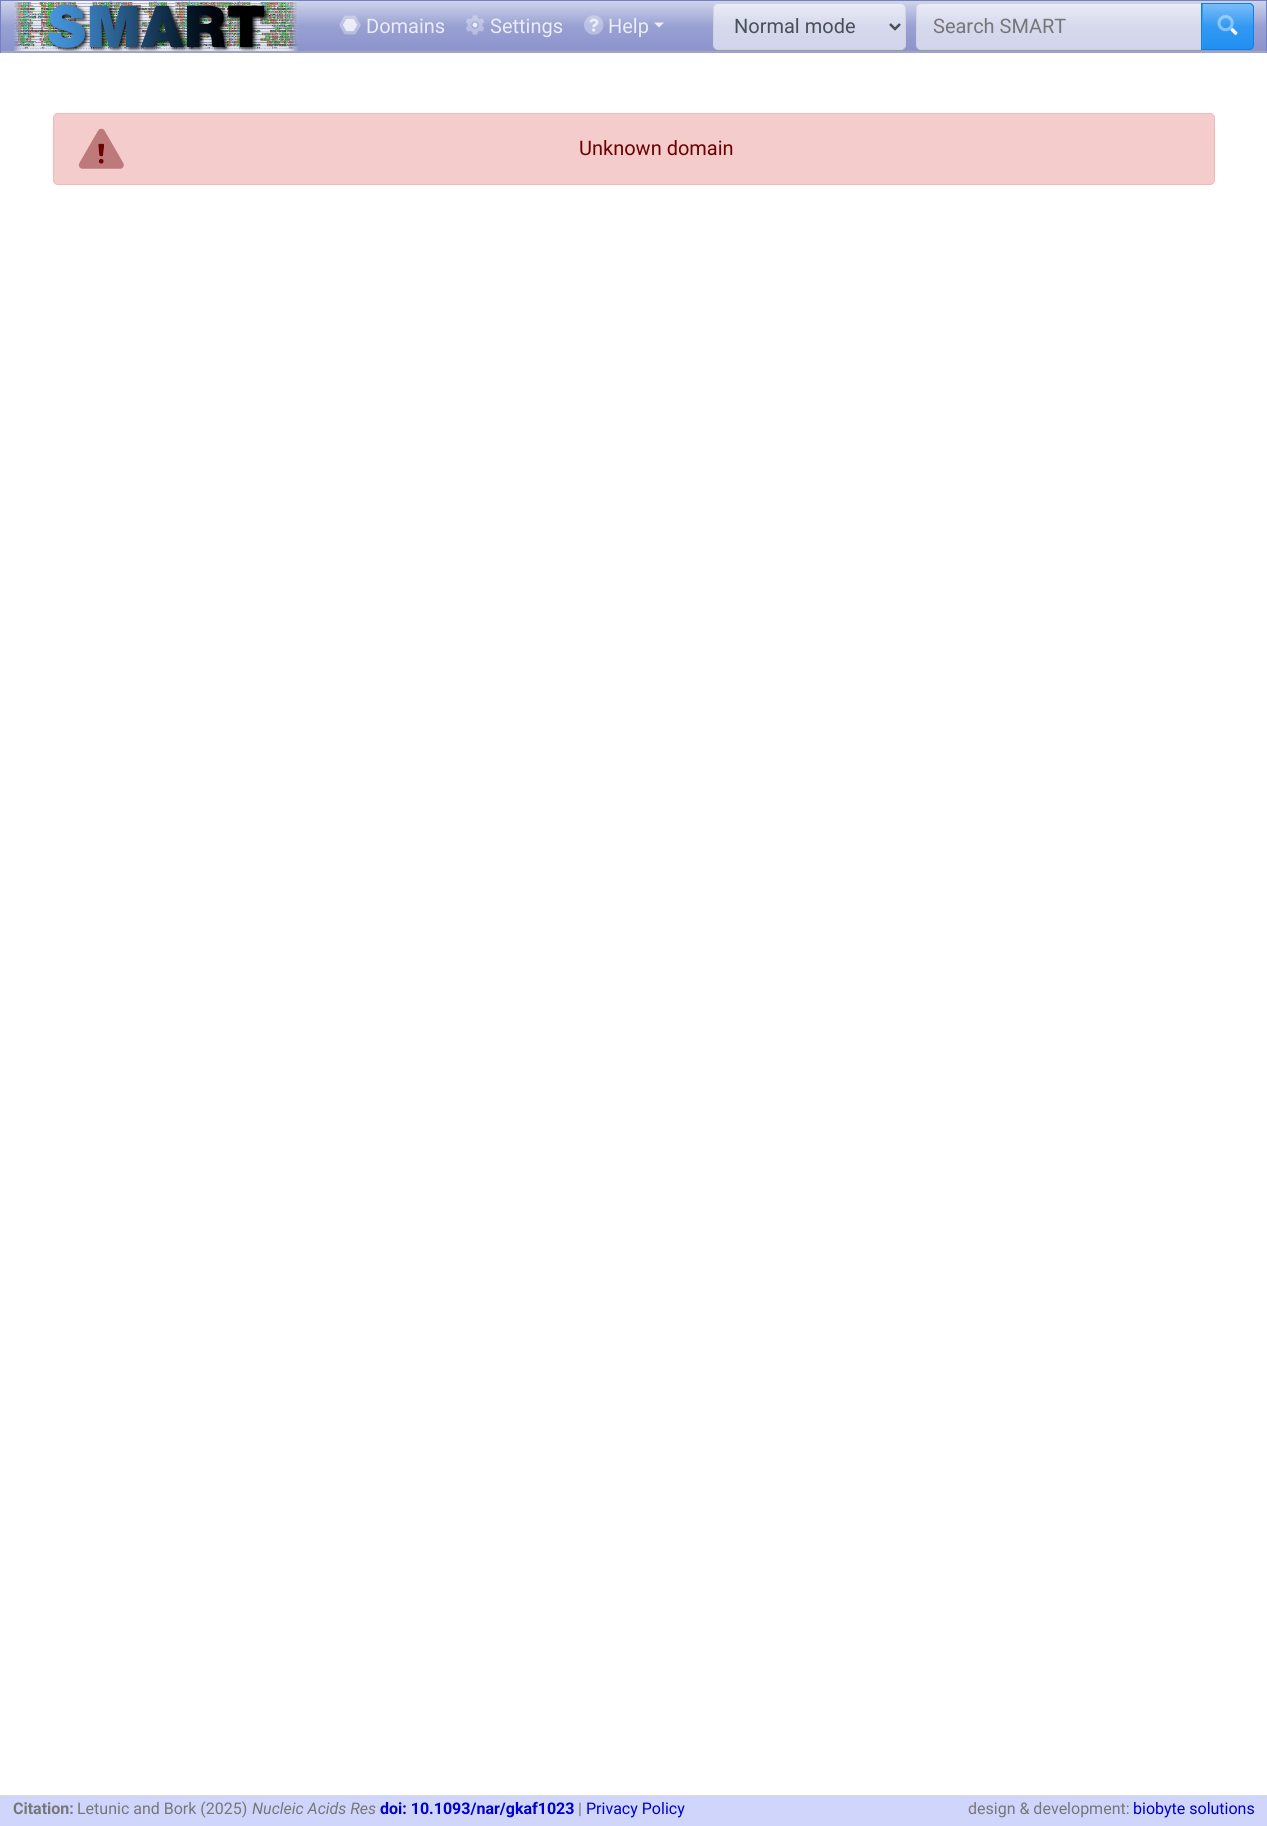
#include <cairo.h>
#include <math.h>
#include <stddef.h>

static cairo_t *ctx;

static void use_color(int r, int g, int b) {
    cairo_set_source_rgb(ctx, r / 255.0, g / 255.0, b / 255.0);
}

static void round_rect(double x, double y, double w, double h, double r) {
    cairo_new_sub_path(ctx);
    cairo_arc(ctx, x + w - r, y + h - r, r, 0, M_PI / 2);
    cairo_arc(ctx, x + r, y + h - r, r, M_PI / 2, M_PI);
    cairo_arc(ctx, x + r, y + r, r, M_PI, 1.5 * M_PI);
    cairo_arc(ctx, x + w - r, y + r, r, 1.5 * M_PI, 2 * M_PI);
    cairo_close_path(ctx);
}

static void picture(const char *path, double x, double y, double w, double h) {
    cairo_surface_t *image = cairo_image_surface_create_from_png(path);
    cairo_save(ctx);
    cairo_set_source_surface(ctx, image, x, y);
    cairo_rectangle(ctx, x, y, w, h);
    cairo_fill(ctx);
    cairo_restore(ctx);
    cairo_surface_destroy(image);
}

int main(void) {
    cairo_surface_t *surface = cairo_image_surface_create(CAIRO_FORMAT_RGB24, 1267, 1826);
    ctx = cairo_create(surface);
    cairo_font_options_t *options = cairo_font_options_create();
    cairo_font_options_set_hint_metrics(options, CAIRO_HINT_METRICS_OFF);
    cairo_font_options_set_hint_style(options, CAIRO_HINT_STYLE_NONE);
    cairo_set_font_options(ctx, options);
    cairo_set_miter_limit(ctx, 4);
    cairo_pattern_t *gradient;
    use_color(255, 255, 255);
    cairo_paint(ctx);
    use_color(153, 161, 211);
    cairo_rectangle(ctx, 1, 52, 1265, 1);
    cairo_fill(ctx);
    gradient = cairo_pattern_create_linear(634, 1.2, 634, 51);
    cairo_pattern_add_color_stop_rgba(gradient, 0, 0.808, 0.824, 0.918, 1);
    cairo_pattern_add_color_stop_rgba(gradient, 0.5, 0.6, 0.631, 0.827, 1);
    cairo_pattern_add_color_stop_rgba(gradient, 1, 0.545, 0.58, 0.804, 1);
    cairo_set_source(ctx, gradient);
    cairo_pattern_destroy(gradient);
    cairo_rectangle(ctx, 1, 1, 1265, 50);
    cairo_fill(ctx);
    use_color(117, 128, 196);
    cairo_rectangle(ctx, 0, 0, 1267, 1);
    cairo_fill(ctx);
    cairo_rectangle(ctx, 1266, 0, 1, 53);
    cairo_fill(ctx);
    use_color(170, 170, 170);
    cairo_rectangle(ctx, 0, 51, 1267, 1);
    cairo_fill(ctx);
    use_color(117, 128, 196);
    cairo_rectangle(ctx, 0, 0, 1, 53);
    cairo_fill(ctx);
    picture("img1.png", 14, 1, 285, 50);
    picture("img3.png", 343, 18, 14, 14);
    picture("img2.png", 339, 15, 22, 20);
    cairo_select_font_face(ctx, "Roboto", CAIRO_FONT_SLANT_NORMAL, CAIRO_FONT_WEIGHT_NORMAL);
    cairo_set_font_size(ctx, 20);
    use_color(235, 236, 246);
    cairo_move_to(ctx, 366, 33);
    cairo_show_text(ctx, "Domains");
    picture("img5.png", 472, 22, 6, 6);
    picture("img4.png", 466, 15, 19, 20);
    cairo_move_to(ctx, 490, 33);
    cairo_show_text(ctx, "Settings");
    picture("img7.png", 589, 18, 10, 14);
    picture("img6.png", 584, 15, 20, 20);
    cairo_move_to(ctx, 608, 33);
    cairo_show_text(ctx, "Help");
    cairo_set_source_rgba(ctx, 1, 1, 1, 0.8);
    cairo_new_path(ctx);
    cairo_move_to(ctx, 654, 22.5);
    cairo_line_to(ctx, 664, 22.5);
    cairo_line_to(ctx, 659, 27.5);
    cairo_close_path(ctx);
    cairo_fill(ctx);
    cairo_set_source_rgba(ctx, 1, 1, 1, 0.6);
    round_rect(713.5, 3.5, 192, 46, 4.5);
    cairo_fill_preserve(ctx);
    use_color(206, 212, 218);
    cairo_set_line_width(ctx, 1);
    cairo_stroke(ctx);
    cairo_new_path(ctx);
    cairo_move_to(ctx, 890, 24);
    cairo_line_to(ctx, 895, 29);
    cairo_line_to(ctx, 900, 24);
    use_color(73, 80, 87);
    cairo_set_line_width(ctx, 2.5);
    cairo_stroke(ctx);
    cairo_move_to(ctx, 734, 33);
    cairo_show_text(ctx, "Normal mode");
    cairo_set_source_rgba(ctx, 1, 1, 1, 0.6);
    cairo_new_path(ctx);
    cairo_move_to(ctx, 921, 3.5);
    cairo_line_to(ctx, 1202.5, 3.5);
    cairo_line_to(ctx, 1202.5, 49.5);
    cairo_line_to(ctx, 921, 49.5);
    cairo_curve_to(ctx, 918.5, 49.5, 916.5, 47.5, 916.5, 45);
    cairo_line_to(ctx, 916.5, 8);
    cairo_curve_to(ctx, 916.5, 5.5, 918.5, 3.5, 921, 3.5);
    cairo_close_path(ctx);
    cairo_fill_preserve(ctx);
    use_color(206, 212, 218);
    cairo_set_line_width(ctx, 1);
    cairo_stroke(ctx);
    use_color(119, 119, 119);
    cairo_move_to(ctx, 933, 33);
    cairo_show_text(ctx, "Search SMART");
    use_color(51, 153, 243);
    cairo_new_path(ctx);
    cairo_move_to(ctx, 1201, 3);
    cairo_line_to(ctx, 1249, 3);
    cairo_curve_to(ctx, 1252, 3, 1254, 5, 1254, 8);
    cairo_line_to(ctx, 1254, 45);
    cairo_curve_to(ctx, 1254, 48, 1252, 50, 1249, 50);
    cairo_line_to(ctx, 1201, 50);
    cairo_close_path(ctx);
    cairo_fill(ctx);
    gradient = cairo_pattern_create_linear(1228, 3.7, 1228, 49);
    cairo_pattern_add_color_stop_rgba(gradient, 0, 0.482, 0.741, 0.969, 1);
    cairo_pattern_add_color_stop_rgba(gradient, 0.5, 0.2, 0.6, 0.953, 1);
    cairo_pattern_add_color_stop_rgba(gradient, 1, 0.125, 0.561, 0.949, 1);
    cairo_set_source(ctx, gradient);
    cairo_pattern_destroy(gradient);
    cairo_rectangle(ctx, 1203, 4, 50, 45);
    cairo_fill(ctx);
    cairo_new_path(ctx);
    cairo_move_to(ctx, 1201.5, 3.5);
    cairo_line_to(ctx, 1249, 3.5);
    cairo_curve_to(ctx, 1251.5, 3.5, 1253.5, 5.5, 1253.5, 8);
    cairo_line_to(ctx, 1253.5, 45);
    cairo_curve_to(ctx, 1253.5, 47.5, 1251.5, 49.5, 1249, 49.5);
    cairo_line_to(ctx, 1201.5, 49.5);
    cairo_close_path(ctx);
    use_color(14, 128, 230);
    cairo_stroke(ctx);
    picture("img9.png", 1230, 28, 8, 7);
    picture("img8.png", 1217, 15, 17, 17);
    use_color(245, 204, 204);
    round_rect(53.5, 113.5, 1161, 71, 4.5);
    cairo_fill_preserve(ctx);
    use_color(241, 184, 184);
    cairo_stroke(ctx);
    picture("img11.png", 98, 143, 7, 21);
    picture("img10.png", 78, 128, 46, 41);
    use_color(107, 1, 0);
    cairo_move_to(ctx, 579, 155);
    cairo_show_text(ctx, "Unknown domain");
    use_color(208, 214, 251);
    cairo_rectangle(ctx, 0, 1796, 1267, 30);
    cairo_fill(ctx);
    use_color(221, 221, 221);
    cairo_rectangle(ctx, 0, 1795, 1267, 1);
    cairo_fill(ctx);
    cairo_select_font_face(ctx, "Roboto", CAIRO_FONT_SLANT_NORMAL, CAIRO_FONT_WEIGHT_BOLD);
    cairo_set_font_size(ctx, 16);
    use_color(119, 119, 119);
    cairo_move_to(ctx, 13, 1814);
    cairo_show_text(ctx, "Citation:");
    cairo_select_font_face(ctx, "Roboto", CAIRO_FONT_SLANT_NORMAL, CAIRO_FONT_WEIGHT_NORMAL);
    cairo_move_to(ctx, 77, 1814);
    cairo_show_text(ctx, "Letunic and Bork (2025)");
    cairo_select_font_face(ctx, "Roboto", CAIRO_FONT_SLANT_ITALIC, CAIRO_FONT_WEIGHT_NORMAL);
    cairo_move_to(ctx, 252, 1814);
    cairo_show_text(ctx, "Nucleic Acids Res");
    cairo_select_font_face(ctx, "Roboto", CAIRO_FONT_SLANT_NORMAL, CAIRO_FONT_WEIGHT_BOLD);
    use_color(0, 0, 205);
    cairo_move_to(ctx, 380, 1814);
    cairo_show_text(ctx, "doi: 10.1093/nar/gkaf1023");
    cairo_select_font_face(ctx, "Roboto", CAIRO_FONT_SLANT_NORMAL, CAIRO_FONT_WEIGHT_NORMAL);
    use_color(119, 119, 119);
    cairo_move_to(ctx, 578, 1814);
    cairo_show_text(ctx, "|");
    use_color(0, 0, 205);
    cairo_move_to(ctx, 586, 1814);
    cairo_show_text(ctx, "Privacy Policy");
    use_color(119, 119, 119);
    cairo_move_to(ctx, 968, 1814);
    cairo_show_text(ctx, "design & development:");
    use_color(0, 0, 205);
    cairo_move_to(ctx, 1133, 1814);
    cairo_show_text(ctx, "biobyte solutions");
    cairo_surface_write_to_png(surface, "result.png");
    cairo_font_options_destroy(options);
    cairo_destroy(ctx);
    cairo_surface_destroy(surface);
    return 0;
}
